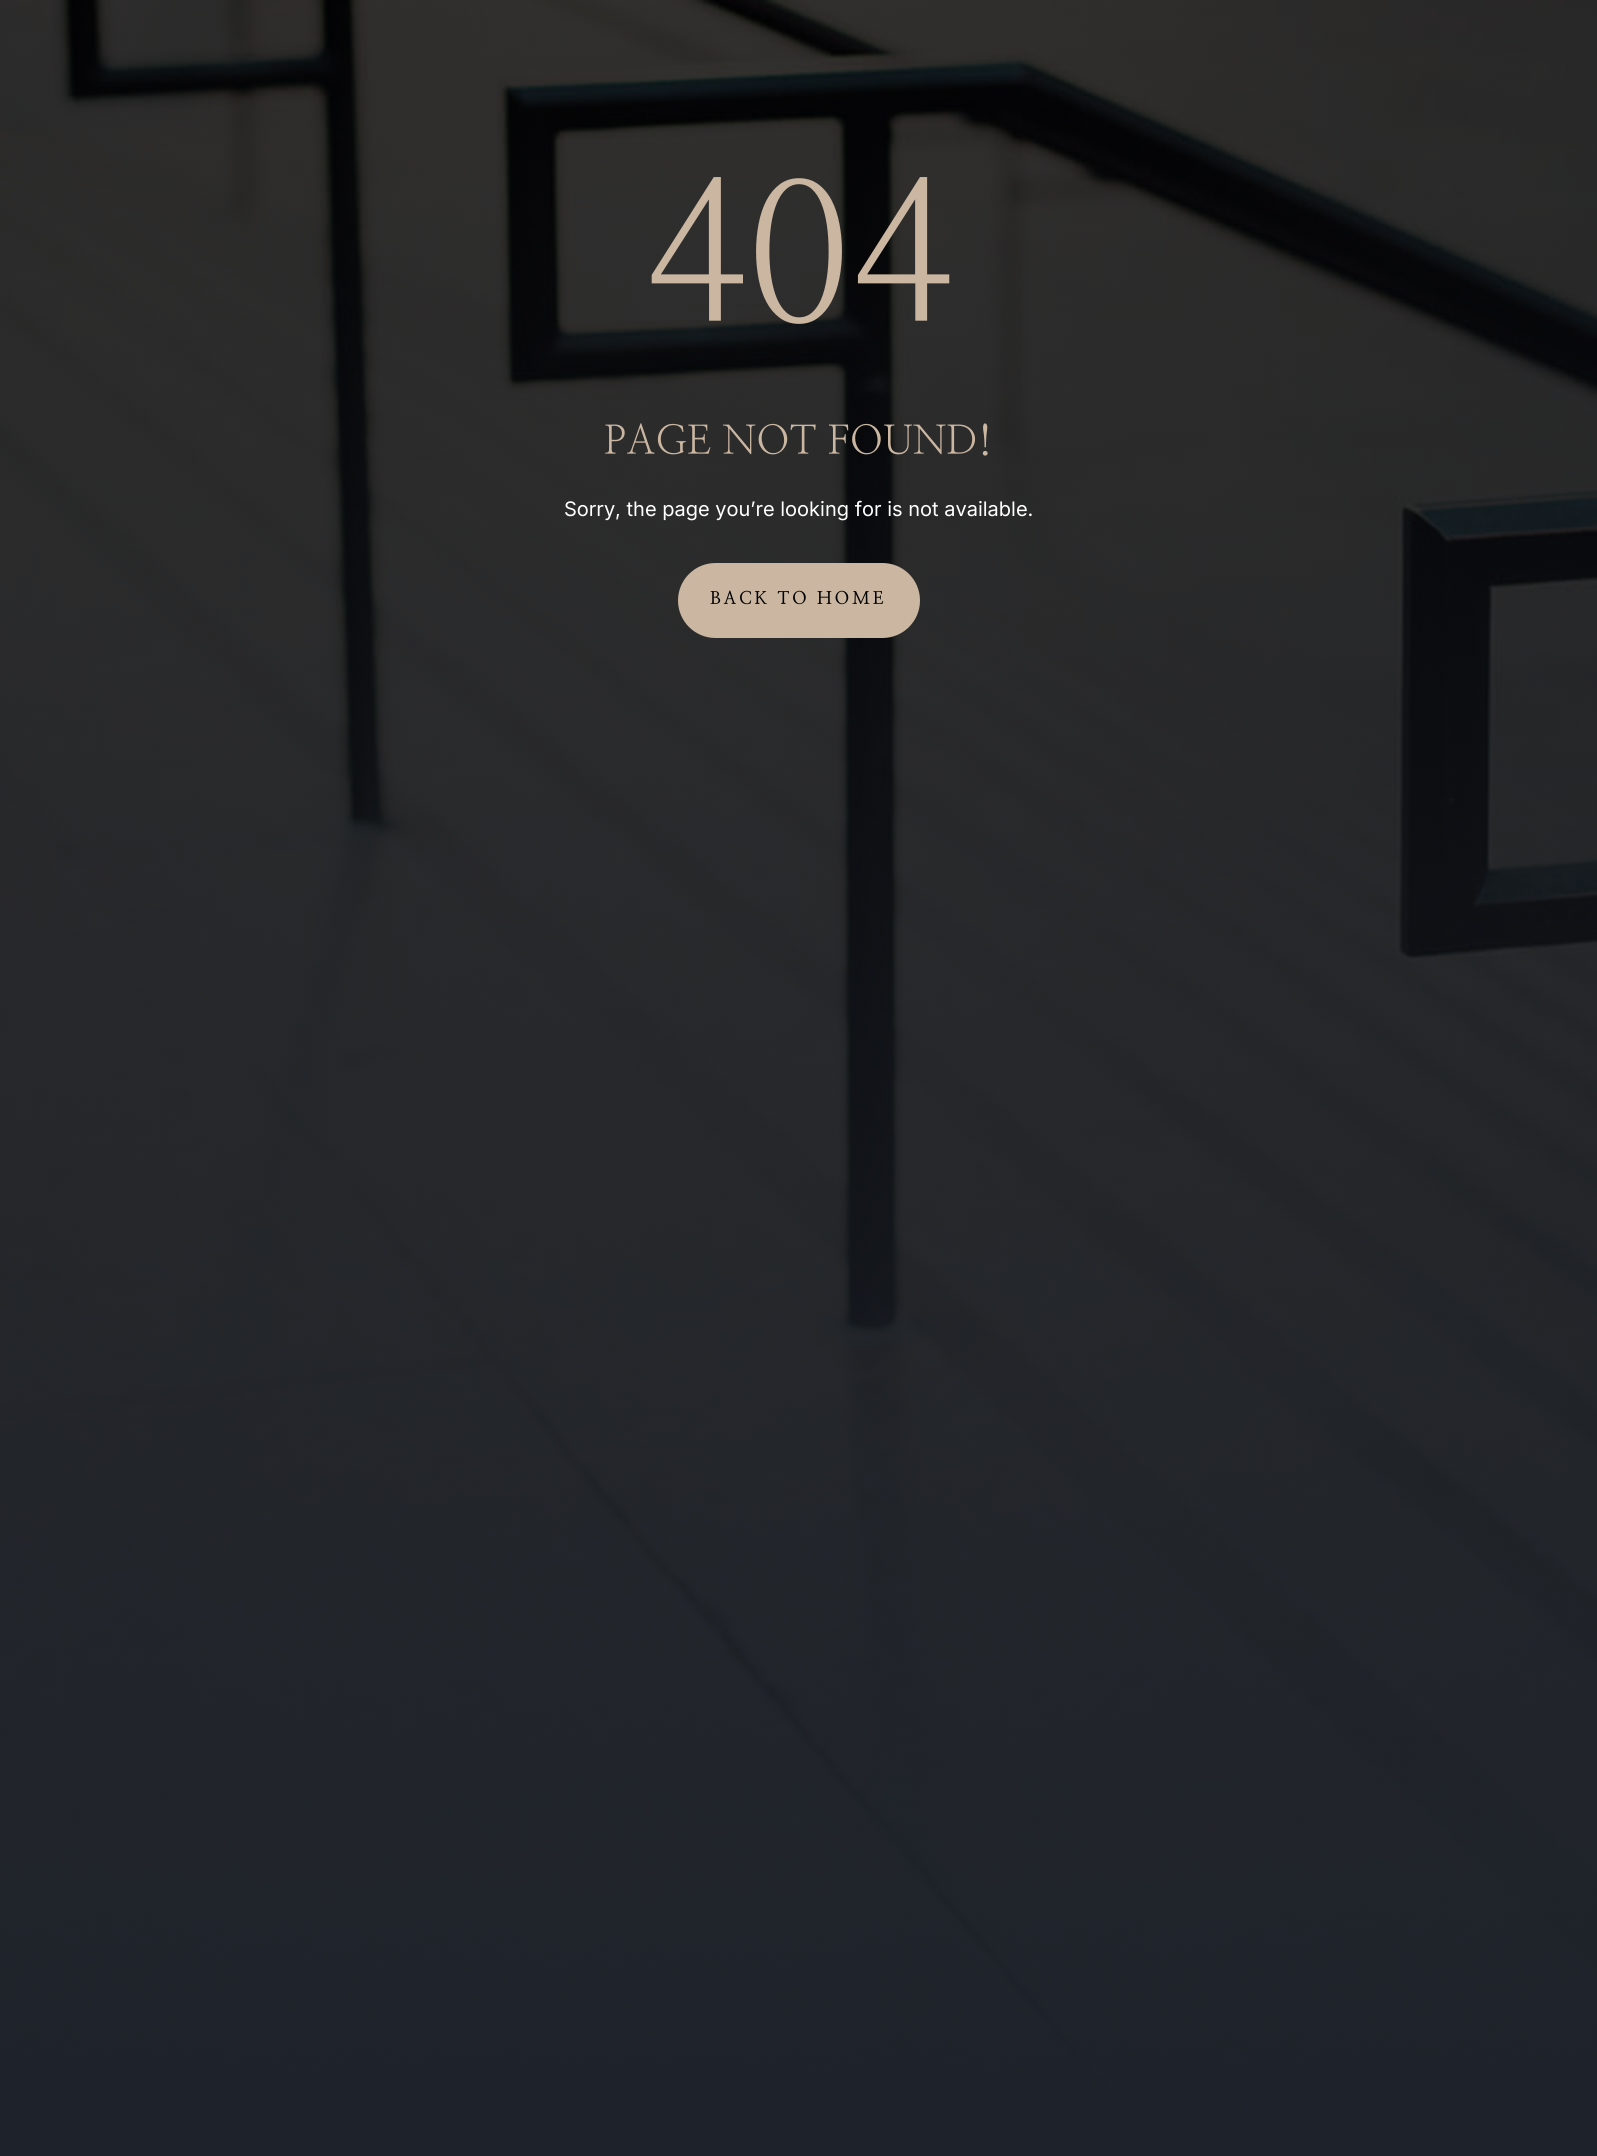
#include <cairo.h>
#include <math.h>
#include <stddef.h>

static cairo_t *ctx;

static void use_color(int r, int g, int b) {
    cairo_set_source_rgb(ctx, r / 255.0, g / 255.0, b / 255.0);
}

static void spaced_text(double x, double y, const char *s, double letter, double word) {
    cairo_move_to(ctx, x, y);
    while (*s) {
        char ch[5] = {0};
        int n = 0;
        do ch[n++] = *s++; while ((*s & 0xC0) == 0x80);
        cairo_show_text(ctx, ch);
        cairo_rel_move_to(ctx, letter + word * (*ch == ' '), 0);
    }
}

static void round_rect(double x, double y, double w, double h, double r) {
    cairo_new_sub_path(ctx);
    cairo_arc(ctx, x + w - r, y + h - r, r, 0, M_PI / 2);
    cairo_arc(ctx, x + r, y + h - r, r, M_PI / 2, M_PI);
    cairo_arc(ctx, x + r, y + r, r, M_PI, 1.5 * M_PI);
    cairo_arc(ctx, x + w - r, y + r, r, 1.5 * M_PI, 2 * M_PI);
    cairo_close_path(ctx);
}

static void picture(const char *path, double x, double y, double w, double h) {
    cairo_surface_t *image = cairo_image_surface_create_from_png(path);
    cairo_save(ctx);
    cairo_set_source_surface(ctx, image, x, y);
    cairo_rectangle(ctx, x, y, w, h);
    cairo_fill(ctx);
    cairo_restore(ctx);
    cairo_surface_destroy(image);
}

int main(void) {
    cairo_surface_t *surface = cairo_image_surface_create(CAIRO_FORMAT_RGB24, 1597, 2156);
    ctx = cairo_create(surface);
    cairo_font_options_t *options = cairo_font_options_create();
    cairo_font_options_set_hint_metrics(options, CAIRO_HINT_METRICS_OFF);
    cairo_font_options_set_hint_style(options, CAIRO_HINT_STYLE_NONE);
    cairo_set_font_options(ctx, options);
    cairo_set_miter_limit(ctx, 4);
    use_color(255, 255, 255);
    cairo_paint(ctx);
    picture("img1.png", 0, 0, 1597, 2156);
    cairo_select_font_face(ctx, "NanumMyeongjo", CAIRO_FONT_SLANT_NORMAL, CAIRO_FONT_WEIGHT_NORMAL);
    cairo_set_font_size(ctx, 192);
    use_color(202, 182, 161);
    cairo_move_to(ctx, 644, 322);
    cairo_show_text(ctx, "404");
    cairo_set_font_size(ctx, 40);
    cairo_move_to(ctx, 604, 454);
    cairo_show_text(ctx, "PAGE NOT FOUND!");
    cairo_select_font_face(ctx, "Inter", CAIRO_FONT_SLANT_NORMAL, CAIRO_FONT_WEIGHT_NORMAL);
    cairo_set_font_size(ctx, 20);
    use_color(255, 255, 255);
    cairo_move_to(ctx, 564, 516);
    cairo_show_text(ctx, "Sorry, the page you’re looking for is not available.");
    use_color(202, 182, 161);
    round_rect(678, 563, 242, 75, 37.5);
    cairo_fill(ctx);
    cairo_select_font_face(ctx, "NanumMyeongjo", CAIRO_FONT_SLANT_NORMAL, CAIRO_FONT_WEIGHT_BOLD);
    cairo_set_font_size(ctx, 17.5);
    use_color(0, 0, 0);
    spaced_text(710, 604, "BACK TO HOME", 2.75, 0);
    cairo_surface_write_to_png(surface, "result.png");
    cairo_font_options_destroy(options);
    cairo_destroy(ctx);
    cairo_surface_destroy(surface);
    return 0;
}
